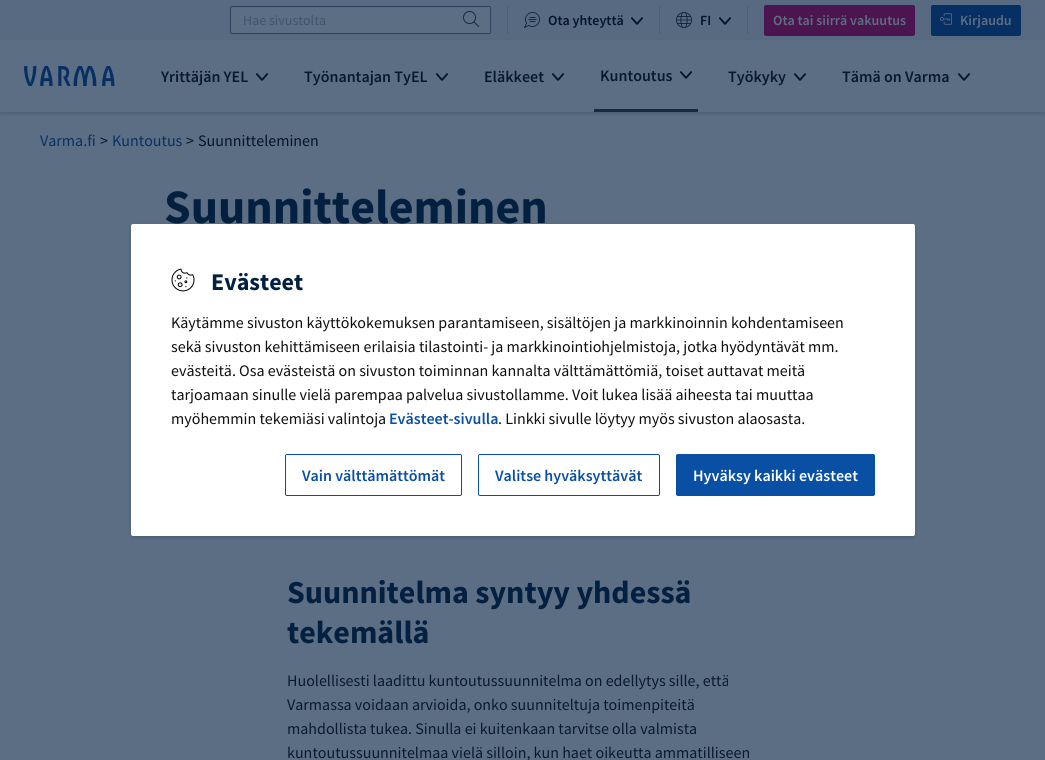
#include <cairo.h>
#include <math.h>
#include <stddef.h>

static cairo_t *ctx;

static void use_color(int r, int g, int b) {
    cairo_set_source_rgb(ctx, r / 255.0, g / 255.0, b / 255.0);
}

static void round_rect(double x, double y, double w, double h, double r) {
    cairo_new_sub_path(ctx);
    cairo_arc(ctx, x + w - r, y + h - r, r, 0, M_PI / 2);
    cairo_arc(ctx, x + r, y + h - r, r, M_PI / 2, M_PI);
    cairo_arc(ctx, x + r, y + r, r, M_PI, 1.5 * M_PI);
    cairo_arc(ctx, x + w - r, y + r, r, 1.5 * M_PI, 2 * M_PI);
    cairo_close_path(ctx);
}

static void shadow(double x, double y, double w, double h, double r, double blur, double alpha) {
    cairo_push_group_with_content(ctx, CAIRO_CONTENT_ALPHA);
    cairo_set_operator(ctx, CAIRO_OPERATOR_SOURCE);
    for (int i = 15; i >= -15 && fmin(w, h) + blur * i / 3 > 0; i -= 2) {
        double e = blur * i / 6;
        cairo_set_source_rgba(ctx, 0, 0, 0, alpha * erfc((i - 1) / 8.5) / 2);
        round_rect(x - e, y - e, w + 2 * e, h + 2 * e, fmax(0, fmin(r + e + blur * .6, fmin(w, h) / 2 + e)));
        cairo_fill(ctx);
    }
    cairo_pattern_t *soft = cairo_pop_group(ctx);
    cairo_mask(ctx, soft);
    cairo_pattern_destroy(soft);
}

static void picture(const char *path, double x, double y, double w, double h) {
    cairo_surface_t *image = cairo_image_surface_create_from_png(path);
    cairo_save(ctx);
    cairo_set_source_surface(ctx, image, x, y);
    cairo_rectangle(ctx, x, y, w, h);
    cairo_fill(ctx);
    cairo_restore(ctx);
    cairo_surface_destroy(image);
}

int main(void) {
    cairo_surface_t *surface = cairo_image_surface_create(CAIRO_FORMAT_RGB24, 1045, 760);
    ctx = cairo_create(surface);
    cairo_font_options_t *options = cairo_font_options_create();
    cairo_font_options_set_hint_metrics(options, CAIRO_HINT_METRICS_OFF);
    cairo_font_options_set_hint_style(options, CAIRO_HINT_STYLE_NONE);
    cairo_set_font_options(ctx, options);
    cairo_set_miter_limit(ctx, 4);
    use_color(92, 110, 132);
    cairo_paint(ctx);
    use_color(88, 106, 129);
    cairo_rectangle(ctx, 0, 0, 1045, 40);
    cairo_fill(ctx);
    use_color(92, 110, 132);
    round_rect(230.5, 6.5, 260, 27, 1.5);
    cairo_fill_preserve(ctx);
    use_color(43, 66, 94);
    cairo_set_line_width(ctx, 1);
    cairo_stroke(ctx);
    cairo_select_font_face(ctx, "Source Sans Pro", CAIRO_FONT_SLANT_NORMAL, CAIRO_FONT_WEIGHT_NORMAL);
    cairo_set_font_size(ctx, 14);
    use_color(62, 85, 111);
    cairo_move_to(ctx, 243, 25);
    cairo_show_text(ctx, "Hae sivustolta");
    picture("img1.png", 463, 11, 16, 16);
    use_color(75, 96, 120);
    cairo_rectangle(ctx, 507, 6, 1, 28);
    cairo_fill(ctx);
    picture("img2.png", 524, 12, 16, 16);
    cairo_select_font_face(ctx, "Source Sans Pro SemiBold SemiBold", CAIRO_FONT_SLANT_NORMAL, CAIRO_FONT_WEIGHT_NORMAL);
    use_color(3, 21, 42);
    cairo_move_to(ctx, 548, 25);
    cairo_show_text(ctx, "Ota yhteyttä");
    picture("img3.png", 631, 17, 12, 8);
    use_color(75, 96, 120);
    cairo_rectangle(ctx, 659, 6, 1, 28);
    cairo_fill(ctx);
    picture("img4.png", 676, 12, 16, 16);
    use_color(3, 21, 42);
    cairo_move_to(ctx, 700, 25);
    cairo_show_text(ctx, "FI");
    picture("img3.png", 719, 17, 12, 8);
    use_color(75, 96, 120);
    cairo_rectangle(ctx, 747, 6, 1, 28);
    cairo_fill(ctx);
    cairo_save(ctx);
    cairo_set_fill_rule(ctx, CAIRO_FILL_RULE_EVEN_ODD);
    cairo_new_path(ctx);
    cairo_move_to(ctx, 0, 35);
    cairo_line_to(ctx, 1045, 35);
    cairo_line_to(ctx, 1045, 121);
    cairo_line_to(ctx, 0, 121);
    cairo_close_path(ctx);
    cairo_move_to(ctx, 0, 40);
    cairo_line_to(ctx, 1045, 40);
    cairo_line_to(ctx, 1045, 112);
    cairo_line_to(ctx, 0, 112);
    cairo_close_path(ctx);
    cairo_clip(ctx);
    use_color(4, 32, 65);
    shadow(0, 42, 1045, 72, 0, 2, 0.2);
    cairo_restore(ctx);
    use_color(76, 21, 79);
    round_rect(764.5, 5.5, 150, 30, 1.5);
    cairo_fill_preserve(ctx);
    cairo_stroke(ctx);
    use_color(92, 110, 132);
    cairo_move_to(ctx, 773, 25);
    cairo_show_text(ctx, "Ota tai siirrä vakuutus");
    use_color(6, 48, 99);
    round_rect(931.5, 5.5, 89, 30, 1.5);
    cairo_fill_preserve(ctx);
    cairo_stroke(ctx);
    picture("img5.png", 940, 13, 12, 12);
    use_color(92, 110, 132);
    cairo_move_to(ctx, 960, 25);
    cairo_show_text(ctx, "Kirjaudu");
    picture("img6.png", 24, 66, 91, 20);
    cairo_set_font_size(ctx, 16);
    use_color(8, 26, 49);
    cairo_move_to(ctx, 161, 82);
    cairo_show_text(ctx, "Yrittäjän YEL");
    picture("img7.png", 256, 73, 12, 8);
    cairo_move_to(ctx, 304, 82);
    cairo_show_text(ctx, "Työnantajan TyEL");
    picture("img7.png", 436, 73, 12, 8);
    cairo_move_to(ctx, 484, 82);
    cairo_show_text(ctx, "Eläkkeet");
    picture("img7.png", 552, 73, 12, 8);
    use_color(22, 42, 66);
    cairo_rectangle(ctx, 594, 109, 104, 3);
    cairo_fill(ctx);
    use_color(8, 26, 49);
    cairo_move_to(ctx, 600, 81);
    cairo_show_text(ctx, "Kuntoutus");
    picture("img7.png", 680, 71, 12, 8);
    cairo_move_to(ctx, 728, 82);
    cairo_show_text(ctx, "Työkyky");
    picture("img7.png", 794, 73, 12, 8);
    cairo_move_to(ctx, 842, 82);
    cairo_show_text(ctx, "Tämä on Varma");
    picture("img7.png", 958, 73, 12, 8);
    cairo_select_font_face(ctx, "Source Sans Pro", CAIRO_FONT_SLANT_NORMAL, CAIRO_FONT_WEIGHT_NORMAL);
    use_color(6, 48, 99);
    cairo_move_to(ctx, 40, 146);
    cairo_show_text(ctx, "Varma.fi");
    use_color(3, 21, 42);
    cairo_move_to(ctx, 100, 146);
    cairo_show_text(ctx, ">");
    use_color(6, 48, 99);
    cairo_move_to(ctx, 112, 146);
    cairo_show_text(ctx, "Kuntoutus");
    use_color(3, 21, 42);
    cairo_move_to(ctx, 186, 146);
    cairo_show_text(ctx, ">");
    cairo_move_to(ctx, 198, 146);
    cairo_show_text(ctx, "Suunnitteleminen");
    cairo_select_font_face(ctx, "Source Sans Pro", CAIRO_FONT_SLANT_NORMAL, CAIRO_FONT_WEIGHT_BOLD);
    cairo_set_font_size(ctx, 48);
    use_color(4, 32, 65);
    cairo_move_to(ctx, 164, 223);
    cairo_show_text(ctx, "Suunnitteleminen");
    cairo_set_font_size(ctx, 32);
    cairo_move_to(ctx, 287, 603);
    cairo_show_text(ctx, "Suunnitelma syntyy yhdessä");
    cairo_move_to(ctx, 287, 643);
    cairo_show_text(ctx, "tekemällä");
    cairo_select_font_face(ctx, "Source Sans Pro", CAIRO_FONT_SLANT_NORMAL, CAIRO_FONT_WEIGHT_NORMAL);
    cairo_set_font_size(ctx, 16);
    use_color(8, 26, 49);
    cairo_move_to(ctx, 287, 686);
    cairo_show_text(ctx, "Huolellisesti laadittu kuntoutussuunnitelma on edellytys sille, että");
    cairo_move_to(ctx, 287, 710);
    cairo_show_text(ctx, "Varmassa voidaan arvioida, onko suunniteltuja toimenpiteitä");
    cairo_move_to(ctx, 287, 734);
    cairo_show_text(ctx, "mahdollista tukea. Sinulla ei kuitenkaan tarvitse olla valmista");
    cairo_move_to(ctx, 287, 758);
    cairo_show_text(ctx, "kuntoutussuunnitelmaa vielä silloin, kun haet oikeutta ammatilliseen");
    use_color(4, 32, 65);
    shadow(131, 226, 784, 312, 2, 2, 0.2);
    use_color(255, 255, 255);
    round_rect(131, 224, 784, 312, 2);
    cairo_fill(ctx);
    picture("img8.png", 171, 268, 24, 24);
    cairo_select_font_face(ctx, "Source Sans Pro", CAIRO_FONT_SLANT_NORMAL, CAIRO_FONT_WEIGHT_BOLD);
    cairo_set_font_size(ctx, 24);
    use_color(4, 32, 65);
    cairo_move_to(ctx, 211, 290);
    cairo_show_text(ctx, "Evästeet");
    cairo_select_font_face(ctx, "Source Sans Pro", CAIRO_FONT_SLANT_NORMAL, CAIRO_FONT_WEIGHT_NORMAL);
    cairo_set_font_size(ctx, 16);
    use_color(14, 15, 18);
    cairo_move_to(ctx, 171, 328);
    cairo_show_text(ctx, "Käytämme sivuston käyttökokemuksen parantamiseen, sisältöjen ja markkinoinnin kohdentamiseen");
    cairo_move_to(ctx, 171, 352);
    cairo_show_text(ctx, "sekä sivuston kehittämiseen erilaisia tilastointi- ja markkinointiohjelmistoja, jotka hyödyntävät mm.");
    cairo_move_to(ctx, 171, 376);
    cairo_show_text(ctx, "evästeitä. Osa evästeistä on sivuston toiminnan kannalta välttämättömiä, toiset auttavat meitä");
    cairo_move_to(ctx, 171, 400);
    cairo_show_text(ctx, "tarjoamaan sinulle vielä parempaa palvelua sivustollamme. Voit lukea lisää aiheesta tai muuttaa");
    cairo_move_to(ctx, 171, 424);
    cairo_show_text(ctx, "myöhemmin tekemiäsi valintoja");
    cairo_select_font_face(ctx, "Source Sans Pro SemiBold SemiBold", CAIRO_FONT_SLANT_NORMAL, CAIRO_FONT_WEIGHT_NORMAL);
    use_color(9, 79, 163);
    cairo_move_to(ctx, 389, 424);
    cairo_show_text(ctx, "Evästeet-sivulla");
    cairo_select_font_face(ctx, "Source Sans Pro", CAIRO_FONT_SLANT_NORMAL, CAIRO_FONT_WEIGHT_NORMAL);
    use_color(14, 15, 18);
    cairo_move_to(ctx, 498, 424);
    cairo_show_text(ctx, ". Linkki sivulle löytyy myös sivuston alaosasta.");
    round_rect(285.5, 454.5, 176, 41, 1.5);
    use_color(9, 79, 163);
    cairo_stroke(ctx);
    cairo_select_font_face(ctx, "Source Sans Pro SemiBold SemiBold", CAIRO_FONT_SLANT_NORMAL, CAIRO_FONT_WEIGHT_NORMAL);
    cairo_move_to(ctx, 302, 481);
    cairo_show_text(ctx, "Vain välttämättömät");
    round_rect(478.5, 454.5, 181, 41, 1.5);
    cairo_stroke(ctx);
    cairo_move_to(ctx, 495, 481);
    cairo_show_text(ctx, "Valitse hyväksyttävät");
    round_rect(676.5, 454.5, 198, 41, 1.5);
    cairo_fill_preserve(ctx);
    cairo_stroke(ctx);
    use_color(255, 255, 255);
    cairo_move_to(ctx, 693, 481);
    cairo_show_text(ctx, "Hyväksy kaikki evästeet");
    cairo_surface_write_to_png(surface, "result.png");
    cairo_font_options_destroy(options);
    cairo_destroy(ctx);
    cairo_surface_destroy(surface);
    return 0;
}
